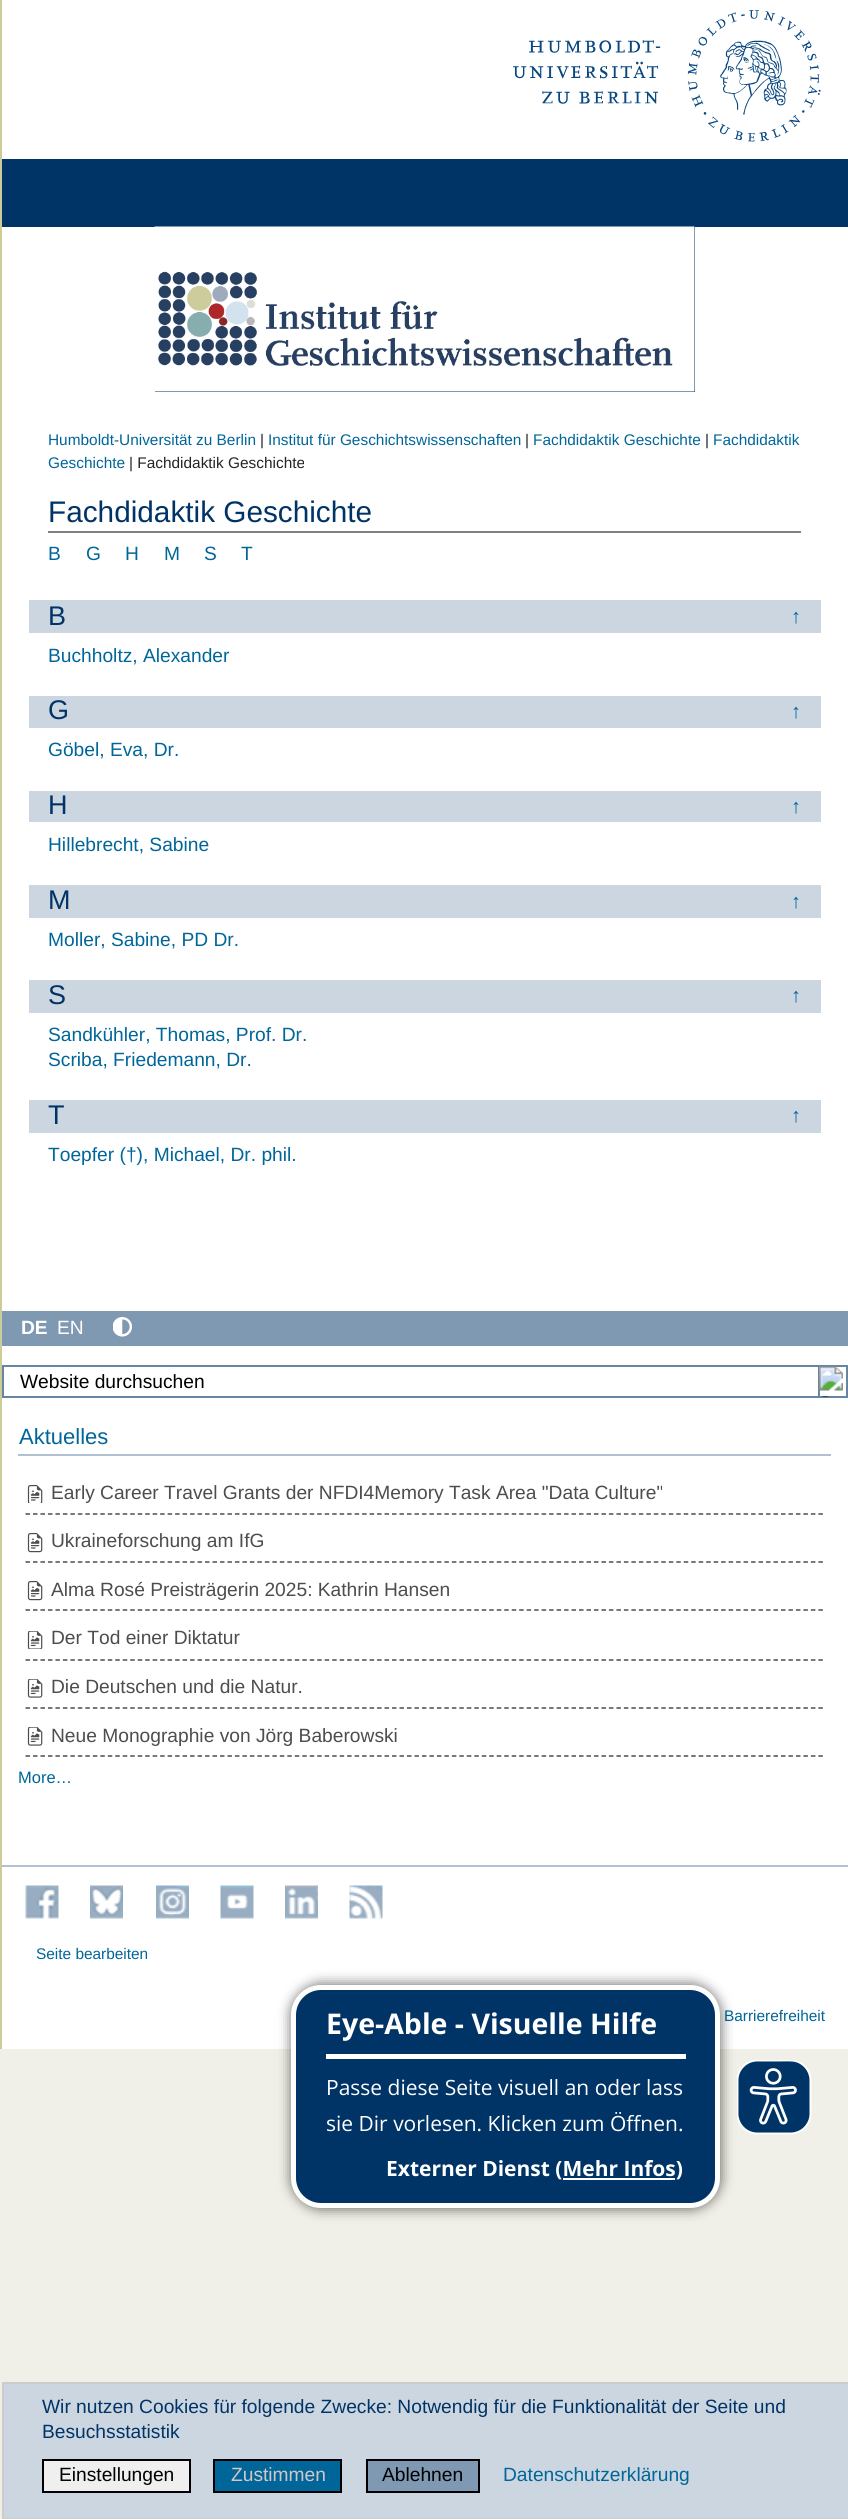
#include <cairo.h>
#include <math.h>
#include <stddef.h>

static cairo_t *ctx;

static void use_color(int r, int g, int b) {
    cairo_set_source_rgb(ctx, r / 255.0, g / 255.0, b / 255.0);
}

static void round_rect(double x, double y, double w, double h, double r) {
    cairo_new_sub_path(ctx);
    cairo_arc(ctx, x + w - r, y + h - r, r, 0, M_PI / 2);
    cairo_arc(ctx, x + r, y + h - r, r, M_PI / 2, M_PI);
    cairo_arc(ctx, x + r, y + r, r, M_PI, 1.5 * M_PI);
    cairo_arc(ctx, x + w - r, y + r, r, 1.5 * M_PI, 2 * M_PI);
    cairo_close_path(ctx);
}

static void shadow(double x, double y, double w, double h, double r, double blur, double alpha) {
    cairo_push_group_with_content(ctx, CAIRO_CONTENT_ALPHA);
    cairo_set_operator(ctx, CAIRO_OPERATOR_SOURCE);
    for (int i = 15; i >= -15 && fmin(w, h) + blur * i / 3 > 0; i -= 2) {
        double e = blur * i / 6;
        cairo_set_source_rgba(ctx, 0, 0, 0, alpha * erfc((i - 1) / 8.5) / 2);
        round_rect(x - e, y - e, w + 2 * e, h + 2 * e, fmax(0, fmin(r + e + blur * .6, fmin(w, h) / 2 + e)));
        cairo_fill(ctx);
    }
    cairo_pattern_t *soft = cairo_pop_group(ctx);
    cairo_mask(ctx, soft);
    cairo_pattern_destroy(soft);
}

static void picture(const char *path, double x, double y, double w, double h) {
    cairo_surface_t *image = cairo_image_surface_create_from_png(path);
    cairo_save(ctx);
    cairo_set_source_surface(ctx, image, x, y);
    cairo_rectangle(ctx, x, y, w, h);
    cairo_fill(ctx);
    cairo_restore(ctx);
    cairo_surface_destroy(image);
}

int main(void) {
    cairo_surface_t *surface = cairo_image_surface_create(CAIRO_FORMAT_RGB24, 848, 2519);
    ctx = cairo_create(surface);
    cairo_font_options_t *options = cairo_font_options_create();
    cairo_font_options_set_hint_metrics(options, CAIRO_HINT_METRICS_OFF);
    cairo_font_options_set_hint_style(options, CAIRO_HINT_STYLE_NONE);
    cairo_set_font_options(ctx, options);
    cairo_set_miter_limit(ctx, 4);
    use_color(240, 240, 232);
    cairo_paint(ctx);
    use_color(255, 255, 255);
    cairo_rectangle(ctx, 2, 0, 846, 2049);
    cairo_fill(ctx);
    picture("img1.png", 513, 10, 308, 132);
    use_color(0, 51, 102);
    cairo_rectangle(ctx, 2, 159, 846, 68);
    cairo_fill(ctx);
    cairo_rectangle(ctx, 155, 227, 540, 165);
    cairo_fill(ctx);
    picture("img2.png", 154, 226, 541, 166);
    use_color(204, 204, 153);
    cairo_rectangle(ctx, 0, 0, 2, 2049);
    cairo_fill(ctx);
    cairo_select_font_face(ctx, "Liberation Sans", CAIRO_FONT_SLANT_NORMAL, CAIRO_FONT_WEIGHT_NORMAL);
    cairo_set_font_size(ctx, 15.4);
    use_color(0, 102, 153);
    cairo_move_to(ctx, 48, 445);
    cairo_show_text(ctx, "Humboldt-Universität zu Berlin");
    use_color(33, 37, 41);
    cairo_move_to(ctx, 260, 445);
    cairo_show_text(ctx, "|");
    use_color(0, 102, 153);
    cairo_move_to(ctx, 268, 445);
    cairo_show_text(ctx, "Institut für Geschichtswissenschaften");
    use_color(33, 37, 41);
    cairo_move_to(ctx, 525, 445);
    cairo_show_text(ctx, "|");
    use_color(0, 102, 153);
    cairo_move_to(ctx, 533, 445);
    cairo_show_text(ctx, "Fachdidaktik Geschichte");
    use_color(33, 37, 41);
    cairo_move_to(ctx, 705, 445);
    cairo_show_text(ctx, "|");
    use_color(0, 102, 153);
    cairo_move_to(ctx, 713, 445);
    cairo_show_text(ctx, "Fachdidaktik");
    cairo_move_to(ctx, 48, 468);
    cairo_show_text(ctx, "Geschichte");
    use_color(33, 37, 41);
    cairo_move_to(ctx, 129, 468);
    cairo_show_text(ctx, "| Fachdidaktik Geschichte");
    use_color(128, 128, 128);
    cairo_rectangle(ctx, 48, 531, 753, 2);
    cairo_fill(ctx);
    cairo_set_font_size(ctx, 29.75);
    use_color(0, 51, 102);
    cairo_move_to(ctx, 48, 522);
    cairo_show_text(ctx, "Fachdidaktik Geschichte");
    cairo_set_font_size(ctx, 19.2);
    use_color(0, 102, 153);
    cairo_move_to(ctx, 48, 560);
    cairo_show_text(ctx, "B");
    cairo_move_to(ctx, 86, 560);
    cairo_show_text(ctx, "G");
    cairo_move_to(ctx, 125, 560);
    cairo_show_text(ctx, "H");
    cairo_move_to(ctx, 164, 560);
    cairo_show_text(ctx, "M");
    cairo_move_to(ctx, 204, 560);
    cairo_show_text(ctx, "S");
    cairo_move_to(ctx, 241, 560);
    cairo_show_text(ctx, "T");
    use_color(204, 214, 224);
    cairo_rectangle(ctx, 29, 600, 792, 33);
    cairo_fill(ctx);
    cairo_set_font_size(ctx, 27);
    use_color(0, 51, 102);
    cairo_move_to(ctx, 48, 625);
    cairo_show_text(ctx, "B");
    cairo_set_font_size(ctx, 20);
    use_color(0, 102, 153);
    cairo_move_to(ctx, 791, 623);
    cairo_show_text(ctx, "↑");
    cairo_set_font_size(ctx, 19.2);
    cairo_move_to(ctx, 48, 662);
    cairo_show_text(ctx, "Buchholtz, Alexander");
    use_color(204, 214, 224);
    cairo_rectangle(ctx, 29, 696, 792, 32);
    cairo_fill(ctx);
    cairo_set_font_size(ctx, 27);
    use_color(0, 51, 102);
    cairo_move_to(ctx, 48, 719);
    cairo_show_text(ctx, "G");
    cairo_set_font_size(ctx, 20);
    use_color(0, 102, 153);
    cairo_move_to(ctx, 791, 718);
    cairo_show_text(ctx, "↑");
    cairo_set_font_size(ctx, 19.2);
    cairo_move_to(ctx, 48, 756);
    cairo_show_text(ctx, "Göbel, Eva, Dr.");
    use_color(204, 214, 224);
    cairo_rectangle(ctx, 29, 791, 792, 31);
    cairo_fill(ctx);
    cairo_set_font_size(ctx, 27);
    use_color(0, 51, 102);
    cairo_move_to(ctx, 48, 814);
    cairo_show_text(ctx, "H");
    cairo_set_font_size(ctx, 20);
    use_color(0, 102, 153);
    cairo_move_to(ctx, 791, 813);
    cairo_show_text(ctx, "↑");
    cairo_set_font_size(ctx, 19.2);
    cairo_move_to(ctx, 48, 851);
    cairo_show_text(ctx, "Hillebrecht, Sabine");
    use_color(204, 214, 224);
    cairo_rectangle(ctx, 29, 885, 792, 33);
    cairo_fill(ctx);
    cairo_set_font_size(ctx, 27);
    use_color(0, 51, 102);
    cairo_move_to(ctx, 48, 909);
    cairo_show_text(ctx, "M");
    cairo_set_font_size(ctx, 20);
    use_color(0, 102, 153);
    cairo_move_to(ctx, 791, 908);
    cairo_show_text(ctx, "↑");
    cairo_set_font_size(ctx, 19.2);
    cairo_move_to(ctx, 48, 946);
    cairo_show_text(ctx, "Moller, Sabine, PD Dr.");
    use_color(204, 214, 224);
    cairo_rectangle(ctx, 29, 980, 792, 33);
    cairo_fill(ctx);
    cairo_set_font_size(ctx, 27);
    use_color(0, 51, 102);
    cairo_move_to(ctx, 48, 1004);
    cairo_show_text(ctx, "S");
    cairo_set_font_size(ctx, 20);
    use_color(0, 102, 153);
    cairo_move_to(ctx, 791, 1002);
    cairo_show_text(ctx, "↑");
    cairo_set_font_size(ctx, 19.2);
    cairo_move_to(ctx, 48, 1041);
    cairo_show_text(ctx, "Sandkühler, Thomas, Prof. Dr.");
    cairo_move_to(ctx, 48, 1066);
    cairo_show_text(ctx, "Scriba, Friedemann, Dr.");
    use_color(204, 214, 224);
    cairo_rectangle(ctx, 29, 1100, 792, 33);
    cairo_fill(ctx);
    cairo_set_font_size(ctx, 27);
    use_color(0, 51, 102);
    cairo_move_to(ctx, 48, 1124);
    cairo_show_text(ctx, "T");
    cairo_set_font_size(ctx, 20);
    use_color(0, 102, 153);
    cairo_move_to(ctx, 791, 1122);
    cairo_show_text(ctx, "↑");
    cairo_set_font_size(ctx, 19.2);
    cairo_move_to(ctx, 48, 1161);
    cairo_show_text(ctx, "Toepfer (†), Michael, Dr. phil.");
    use_color(128, 153, 178);
    cairo_rectangle(ctx, 2, 1311, 846, 35);
    cairo_fill(ctx);
    cairo_select_font_face(ctx, "Liberation Sans", CAIRO_FONT_SLANT_NORMAL, CAIRO_FONT_WEIGHT_BOLD);
    use_color(255, 255, 255);
    cairo_move_to(ctx, 21, 1334);
    cairo_show_text(ctx, "DE");
    cairo_select_font_face(ctx, "Liberation Sans", CAIRO_FONT_SLANT_NORMAL, CAIRO_FONT_WEIGHT_NORMAL);
    cairo_move_to(ctx, 57, 1334);
    cairo_show_text(ctx, "EN");
    picture("img3.png", 113, 1317, 19, 20);
    cairo_rectangle(ctx, 3, 1366, 844, 31);
    use_color(102, 133, 163);
    cairo_stroke(ctx);
    use_color(0, 0, 0);
    cairo_move_to(ctx, 20, 1388);
    cairo_show_text(ctx, "Website durchsuchen");
    cairo_rectangle(ctx, 819, 1366, 28, 31);
    use_color(102, 133, 163);
    cairo_stroke(ctx);
    picture("img4.png", 819, 1366, 24, 31);
    use_color(178, 193, 209);
    cairo_rectangle(ctx, 18, 1454, 813, 2);
    cairo_fill(ctx);
    cairo_set_font_size(ctx, 22);
    use_color(0, 102, 153);
    cairo_move_to(ctx, 19, 1444);
    cairo_show_text(ctx, "Aktuelles");
    cairo_new_path(ctx);
    cairo_move_to(ctx, 25.5, 1514);
    cairo_line_to(ctx, 823.5, 1514);
    use_color(77, 77, 77);
    cairo_set_line_width(ctx, 1.5);
    cairo_set_dash(ctx, (double[]){4.5, 2.98}, 2, 0);
    cairo_stroke(ctx);
    picture("img5.png", 27, 1485, 16, 18);
    cairo_set_font_size(ctx, 19.2);
    cairo_move_to(ctx, 51, 1499);
    cairo_show_text(ctx, "Early Career Travel Grants der NFDI4Memory Task Area \"Data Culture\"");
    cairo_new_path(ctx);
    cairo_move_to(ctx, 25.5, 1562);
    cairo_line_to(ctx, 823.5, 1562);
    cairo_stroke(ctx);
    picture("img6.png", 27, 1533, 16, 20);
    cairo_move_to(ctx, 51, 1547);
    cairo_show_text(ctx, "Ukraineforschung am IfG");
    cairo_new_path(ctx);
    cairo_move_to(ctx, 25.5, 1610);
    cairo_line_to(ctx, 823.5, 1610);
    cairo_stroke(ctx);
    picture("img6.png", 27, 1581, 16, 20);
    cairo_move_to(ctx, 51, 1596);
    cairo_show_text(ctx, "Alma Rosé Preisträgerin 2025: Kathrin Hansen");
    cairo_new_path(ctx);
    cairo_move_to(ctx, 25.5, 1660);
    cairo_line_to(ctx, 823.5, 1660);
    cairo_stroke(ctx);
    picture("img7.png", 27, 1631, 16, 18);
    cairo_move_to(ctx, 51, 1644);
    cairo_show_text(ctx, "Der Tod einer Diktatur");
    cairo_new_path(ctx);
    cairo_move_to(ctx, 25.5, 1708);
    cairo_line_to(ctx, 823.5, 1708);
    cairo_stroke(ctx);
    picture("img8.png", 27, 1679, 16, 19);
    cairo_move_to(ctx, 51, 1693);
    cairo_show_text(ctx, "Die Deutschen und die Natur.");
    cairo_new_path(ctx);
    cairo_move_to(ctx, 25.5, 1756);
    cairo_line_to(ctx, 823.5, 1756);
    cairo_stroke(ctx);
    picture("img8.png", 27, 1727, 16, 19);
    cairo_move_to(ctx, 51, 1742);
    cairo_show_text(ctx, "Neue Monographie von Jörg Baberowski");
    cairo_set_font_size(ctx, 16.5);
    use_color(0, 102, 153);
    cairo_move_to(ctx, 18, 1783);
    cairo_show_text(ctx, "More…");
    use_color(178, 193, 209);
    cairo_rectangle(ctx, 2, 1865, 846, 2);
    cairo_fill(ctx);
    picture("img9.png", 25, 1885, 34, 34);
    picture("img10.png", 90, 1885, 33, 34);
    picture("img11.png", 156, 1885, 33, 34);
    picture("img12.png", 220, 1885, 34, 34);
    picture("img13.png", 285, 1885, 33, 34);
    picture("img14.png", 349, 1885, 34, 34);
    cairo_set_font_size(ctx, 15.4);
    use_color(0, 102, 153);
    cairo_move_to(ctx, 36, 1959);
    cairo_show_text(ctx, "Seite bearbeiten");
    cairo_move_to(ctx, 724, 2021);
    cairo_show_text(ctx, "Barrierefreiheit");
    use_color(204, 214, 224);
    cairo_rectangle(ctx, 3, 2383, 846, 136);
    cairo_fill_preserve(ctx);
    use_color(204, 204, 204);
    cairo_set_line_width(ctx, 2);
    cairo_set_dash(ctx, NULL, 0, 0);
    cairo_stroke(ctx);
    cairo_set_font_size(ctx, 19.2);
    use_color(0, 51, 102);
    cairo_move_to(ctx, 42, 2413);
    cairo_show_text(ctx, "Wir nutzen Cookies für folgende Zwecke: Notwendig für die Funktionalität der Seite und");
    cairo_move_to(ctx, 42, 2438);
    cairo_show_text(ctx, "Besuchsstatistik");
    use_color(239, 239, 239);
    cairo_rectangle(ctx, 43, 2460, 147, 32);
    cairo_fill_preserve(ctx);
    use_color(0, 0, 0);
    cairo_stroke(ctx);
    cairo_move_to(ctx, 59, 2481);
    cairo_show_text(ctx, "Einstellungen");
    use_color(0, 102, 153);
    cairo_rectangle(ctx, 214, 2460, 127, 32);
    cairo_fill_preserve(ctx);
    use_color(0, 0, 0);
    cairo_stroke(ctx);
    use_color(213, 199, 199);
    cairo_move_to(ctx, 231, 2481);
    cairo_show_text(ctx, "Zustimmen");
    use_color(128, 153, 178);
    cairo_rectangle(ctx, 367, 2460, 112, 32);
    cairo_fill_preserve(ctx);
    use_color(0, 0, 0);
    cairo_stroke(ctx);
    cairo_move_to(ctx, 382, 2481);
    cairo_show_text(ctx, "Ablehnen");
    use_color(0, 102, 153);
    cairo_move_to(ctx, 503, 2481);
    cairo_show_text(ctx, "Datenschutzerklärung");
    use_color(0, 0, 0);
    shadow(290, 1983, 432, 227, 32, 6, 0.5);
    use_color(0, 51, 102);
    round_rect(293.5, 1987.5, 424, 218, 27.5);
    cairo_fill_preserve(ctx);
    use_color(255, 255, 255);
    cairo_set_line_width(ctx, 5);
    cairo_stroke(ctx);
    cairo_rectangle(ctx, 326, 2054, 360, 5);
    cairo_fill(ctx);
    cairo_select_font_face(ctx, "Open Sans", CAIRO_FONT_SLANT_NORMAL, CAIRO_FONT_WEIGHT_BOLD);
    cairo_set_font_size(ctx, 28.5);
    cairo_move_to(ctx, 326, 2034);
    cairo_show_text(ctx, "Eye-Able - Visuelle Hilfe");
    cairo_select_font_face(ctx, "Open Sans", CAIRO_FONT_SLANT_NORMAL, CAIRO_FONT_WEIGHT_NORMAL);
    cairo_set_font_size(ctx, 21);
    cairo_move_to(ctx, 326, 2095);
    cairo_show_text(ctx, "Passe diese Seite visuell an oder lass");
    cairo_move_to(ctx, 326, 2131);
    cairo_show_text(ctx, "sie Dir vorlesen. Klicken zum Öffnen.");
    cairo_select_font_face(ctx, "Open Sans", CAIRO_FONT_SLANT_NORMAL, CAIRO_FONT_WEIGHT_BOLD);
    cairo_move_to(ctx, 386, 2176);
    cairo_show_text(ctx, "Externer Dienst (Mehr Infos)");
    cairo_rectangle(ctx, 563, 2178, 112, 2);
    cairo_fill(ctx);
    picture("img15.png", 737, 2060, 75, 75);
    cairo_surface_write_to_png(surface, "result.png");
    cairo_font_options_destroy(options);
    cairo_destroy(ctx);
    cairo_surface_destroy(surface);
    return 0;
}
